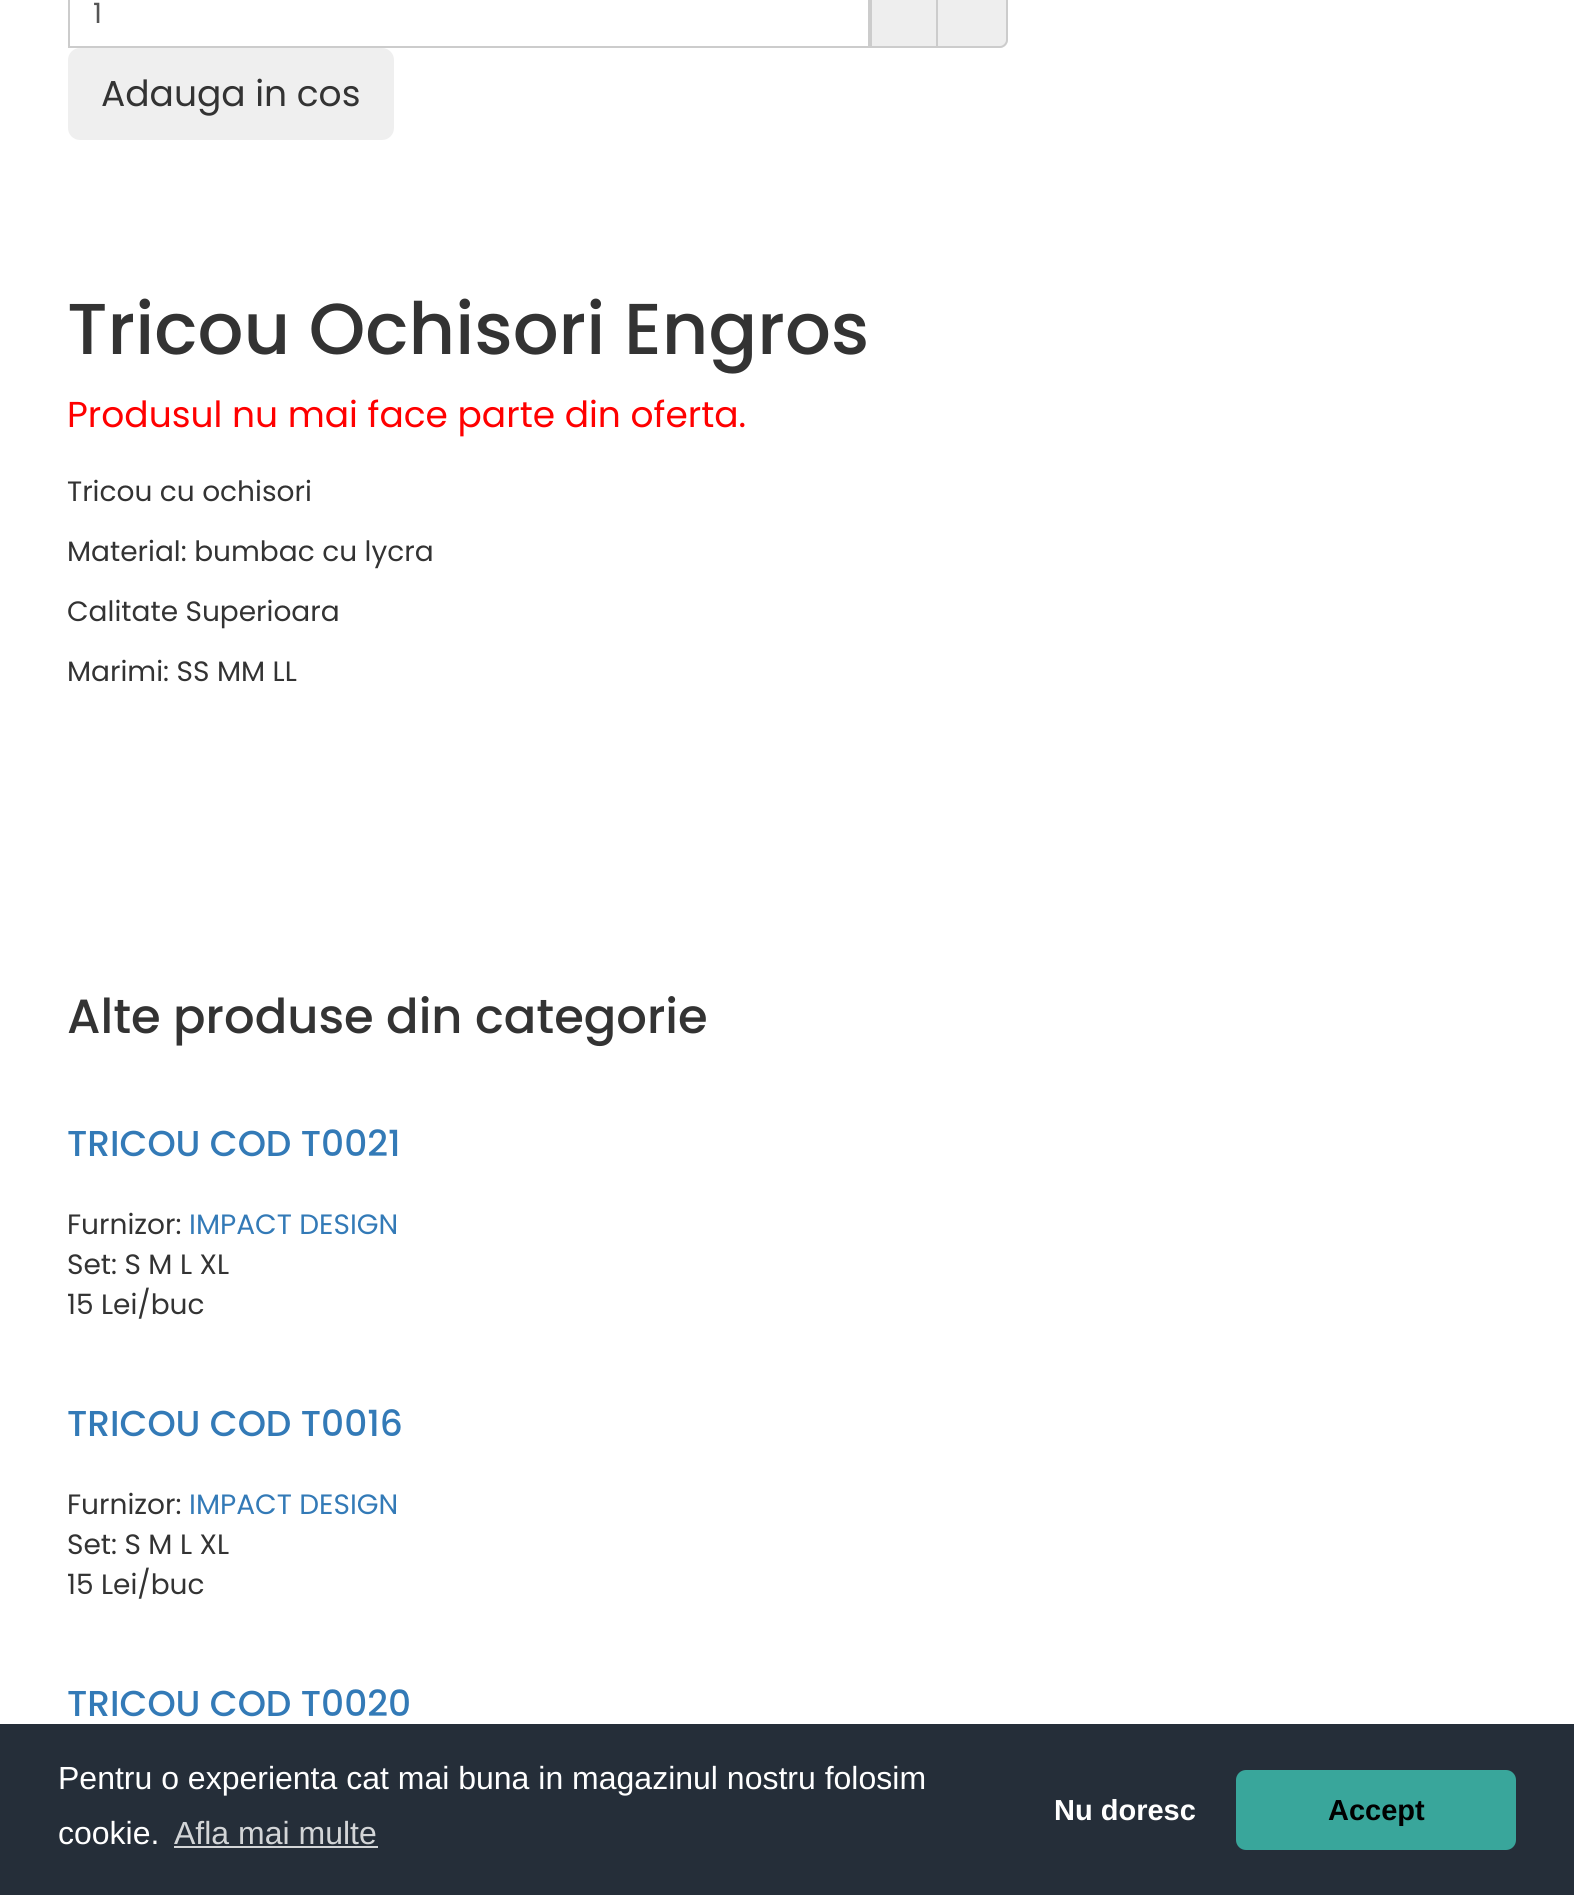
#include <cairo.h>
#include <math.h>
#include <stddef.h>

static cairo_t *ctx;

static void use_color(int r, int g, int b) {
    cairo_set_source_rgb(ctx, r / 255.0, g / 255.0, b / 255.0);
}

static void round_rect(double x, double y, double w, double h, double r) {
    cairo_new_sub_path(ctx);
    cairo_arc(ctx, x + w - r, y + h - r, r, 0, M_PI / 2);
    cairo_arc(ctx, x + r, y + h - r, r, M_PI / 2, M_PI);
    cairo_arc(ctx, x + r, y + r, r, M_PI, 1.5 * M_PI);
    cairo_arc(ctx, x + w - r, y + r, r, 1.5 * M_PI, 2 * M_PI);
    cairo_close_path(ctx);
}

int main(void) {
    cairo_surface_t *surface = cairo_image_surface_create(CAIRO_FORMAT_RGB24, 1574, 1895);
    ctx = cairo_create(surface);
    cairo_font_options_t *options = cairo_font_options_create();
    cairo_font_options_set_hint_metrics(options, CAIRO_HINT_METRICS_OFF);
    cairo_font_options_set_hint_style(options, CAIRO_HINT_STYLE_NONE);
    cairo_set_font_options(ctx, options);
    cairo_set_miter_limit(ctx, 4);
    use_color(255, 255, 255);
    cairo_paint(ctx);
    cairo_rectangle(ctx, 69, -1, 800, 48);
    use_color(204, 204, 204);
    cairo_stroke(ctx);
    cairo_select_font_face(ctx, "Poppins", CAIRO_FONT_SLANT_NORMAL, CAIRO_FONT_WEIGHT_NORMAL);
    cairo_set_font_size(ctx, 28);
    use_color(85, 85, 85);
    cairo_move_to(ctx, 93, 23);
    cairo_show_text(ctx, "1");
    use_color(238, 238, 238);
    cairo_rectangle(ctx, 871, -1, 66, 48);
    cairo_fill_preserve(ctx);
    use_color(204, 204, 204);
    cairo_stroke(ctx);
    use_color(238, 238, 238);
    cairo_new_path(ctx);
    cairo_move_to(ctx, 938, -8);
    cairo_line_to(ctx, 1000, -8);
    cairo_curve_to(ctx, 1004.5, -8, 1008, -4.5, 1008, 0);
    cairo_line_to(ctx, 1008, 40);
    cairo_curve_to(ctx, 1008, 44.5, 1004.5, 48, 1000, 48);
    cairo_line_to(ctx, 938, 48);
    cairo_close_path(ctx);
    cairo_fill(ctx);
    use_color(204, 204, 204);
    cairo_set_fill_rule(ctx, CAIRO_FILL_RULE_EVEN_ODD);
    cairo_new_path(ctx);
    cairo_move_to(ctx, 938, -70);
    cairo_line_to(ctx, 1000, -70);
    cairo_curve_to(ctx, 1004, -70, 1008, -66, 1008, -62);
    cairo_line_to(ctx, 1008, 40);
    cairo_curve_to(ctx, 1008, 44, 1004, 48, 1000, 48);
    cairo_line_to(ctx, 938, 48);
    cairo_close_path(ctx);
    cairo_move_to(ctx, 938, -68);
    cairo_line_to(ctx, 1000, -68);
    cairo_curve_to(ctx, 1003, -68, 1006, -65, 1006, -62);
    cairo_line_to(ctx, 1006, 40);
    cairo_curve_to(ctx, 1006, 43, 1003, 46, 1000, 46);
    cairo_line_to(ctx, 938, 46);
    cairo_close_path(ctx);
    cairo_fill(ctx);
    use_color(239, 239, 239);
    round_rect(68, 48, 326, 92, 12);
    cairo_fill(ctx);
    cairo_set_font_size(ctx, 36);
    use_color(51, 51, 51);
    cairo_move_to(ctx, 101, 106);
    cairo_show_text(ctx, "Adauga in cos");
    cairo_select_font_face(ctx, "Poppins Medium", CAIRO_FONT_SLANT_NORMAL, CAIRO_FONT_WEIGHT_NORMAL);
    cairo_set_font_size(ctx, 72);
    cairo_move_to(ctx, 67, 354);
    cairo_show_text(ctx, "Tricou Ochisori Engros");
    cairo_select_font_face(ctx, "Poppins", CAIRO_FONT_SLANT_NORMAL, CAIRO_FONT_WEIGHT_NORMAL);
    cairo_set_font_size(ctx, 36);
    use_color(255, 0, 0);
    cairo_move_to(ctx, 67, 427);
    cairo_show_text(ctx, "Produsul nu mai face parte din oferta.");
    cairo_set_font_size(ctx, 28);
    use_color(51, 51, 51);
    cairo_move_to(ctx, 67, 501);
    cairo_show_text(ctx, "Tricou cu ochisori");
    cairo_move_to(ctx, 67, 561);
    cairo_show_text(ctx, "Material: bumbac cu lycra");
    cairo_move_to(ctx, 67, 621);
    cairo_show_text(ctx, "Calitate Superioara");
    cairo_move_to(ctx, 67, 681);
    cairo_show_text(ctx, "Marimi: SS MM LL");
    cairo_select_font_face(ctx, "Poppins Medium", CAIRO_FONT_SLANT_NORMAL, CAIRO_FONT_WEIGHT_NORMAL);
    cairo_set_font_size(ctx, 48);
    cairo_move_to(ctx, 67, 1033);
    cairo_show_text(ctx, "Alte produse din categorie");
    cairo_set_font_size(ctx, 36);
    use_color(51, 122, 183);
    cairo_move_to(ctx, 67, 1156);
    cairo_show_text(ctx, "TRICOU COD T0021");
    cairo_select_font_face(ctx, "Poppins", CAIRO_FONT_SLANT_NORMAL, CAIRO_FONT_WEIGHT_NORMAL);
    cairo_set_font_size(ctx, 28);
    use_color(51, 51, 51);
    cairo_move_to(ctx, 67, 1234);
    cairo_show_text(ctx, "Furnizor:");
    use_color(51, 122, 183);
    cairo_move_to(ctx, 189, 1234);
    cairo_show_text(ctx, "IMPACT DESIGN");
    use_color(51, 51, 51);
    cairo_move_to(ctx, 67, 1274);
    cairo_show_text(ctx, "Set: S M L XL");
    cairo_move_to(ctx, 67, 1314);
    cairo_show_text(ctx, "15 Lei/buc");
    cairo_select_font_face(ctx, "Poppins Medium", CAIRO_FONT_SLANT_NORMAL, CAIRO_FONT_WEIGHT_NORMAL);
    cairo_set_font_size(ctx, 36);
    use_color(51, 122, 183);
    cairo_move_to(ctx, 67, 1436);
    cairo_show_text(ctx, "TRICOU COD T0016");
    cairo_select_font_face(ctx, "Poppins", CAIRO_FONT_SLANT_NORMAL, CAIRO_FONT_WEIGHT_NORMAL);
    cairo_set_font_size(ctx, 28);
    use_color(51, 51, 51);
    cairo_move_to(ctx, 67, 1514);
    cairo_show_text(ctx, "Furnizor:");
    use_color(51, 122, 183);
    cairo_move_to(ctx, 189, 1514);
    cairo_show_text(ctx, "IMPACT DESIGN");
    use_color(51, 51, 51);
    cairo_move_to(ctx, 67, 1554);
    cairo_show_text(ctx, "Set: S M L XL");
    cairo_move_to(ctx, 67, 1594);
    cairo_show_text(ctx, "15 Lei/buc");
    cairo_select_font_face(ctx, "Poppins Medium", CAIRO_FONT_SLANT_NORMAL, CAIRO_FONT_WEIGHT_NORMAL);
    cairo_set_font_size(ctx, 36);
    use_color(51, 122, 183);
    cairo_move_to(ctx, 67, 1716);
    cairo_show_text(ctx, "TRICOU COD T0020");
    use_color(37, 46, 57);
    cairo_rectangle(ctx, 0, 1724, 1574, 171);
    cairo_fill(ctx);
    cairo_select_font_face(ctx, "Liberation Sans", CAIRO_FONT_SLANT_NORMAL, CAIRO_FONT_WEIGHT_NORMAL);
    cairo_set_font_size(ctx, 32);
    use_color(255, 255, 255);
    cairo_move_to(ctx, 58, 1789);
    cairo_show_text(ctx, "Pentru o experienta cat mai buna in magazinul nostru folosim");
    cairo_move_to(ctx, 58, 1844);
    cairo_show_text(ctx, "cookie.");
    use_color(211, 213, 215);
    cairo_move_to(ctx, 174, 1844);
    cairo_show_text(ctx, "Afla mai multe");
    cairo_rectangle(ctx, 174, 1846, 204, 2);
    cairo_fill(ctx);
    cairo_select_font_face(ctx, "Liberation Sans", CAIRO_FONT_SLANT_NORMAL, CAIRO_FONT_WEIGHT_BOLD);
    cairo_set_font_size(ctx, 29);
    use_color(255, 255, 255);
    cairo_move_to(ctx, 1054, 1820);
    cairo_show_text(ctx, "Nu doresc");
    use_color(57, 166, 155);
    round_rect(1236, 1770, 280, 80, 10);
    cairo_fill(ctx);
    use_color(0, 0, 0);
    cairo_move_to(ctx, 1328, 1820);
    cairo_show_text(ctx, "Accept");
    cairo_surface_write_to_png(surface, "result.png");
    cairo_font_options_destroy(options);
    cairo_destroy(ctx);
    cairo_surface_destroy(surface);
    return 0;
}
